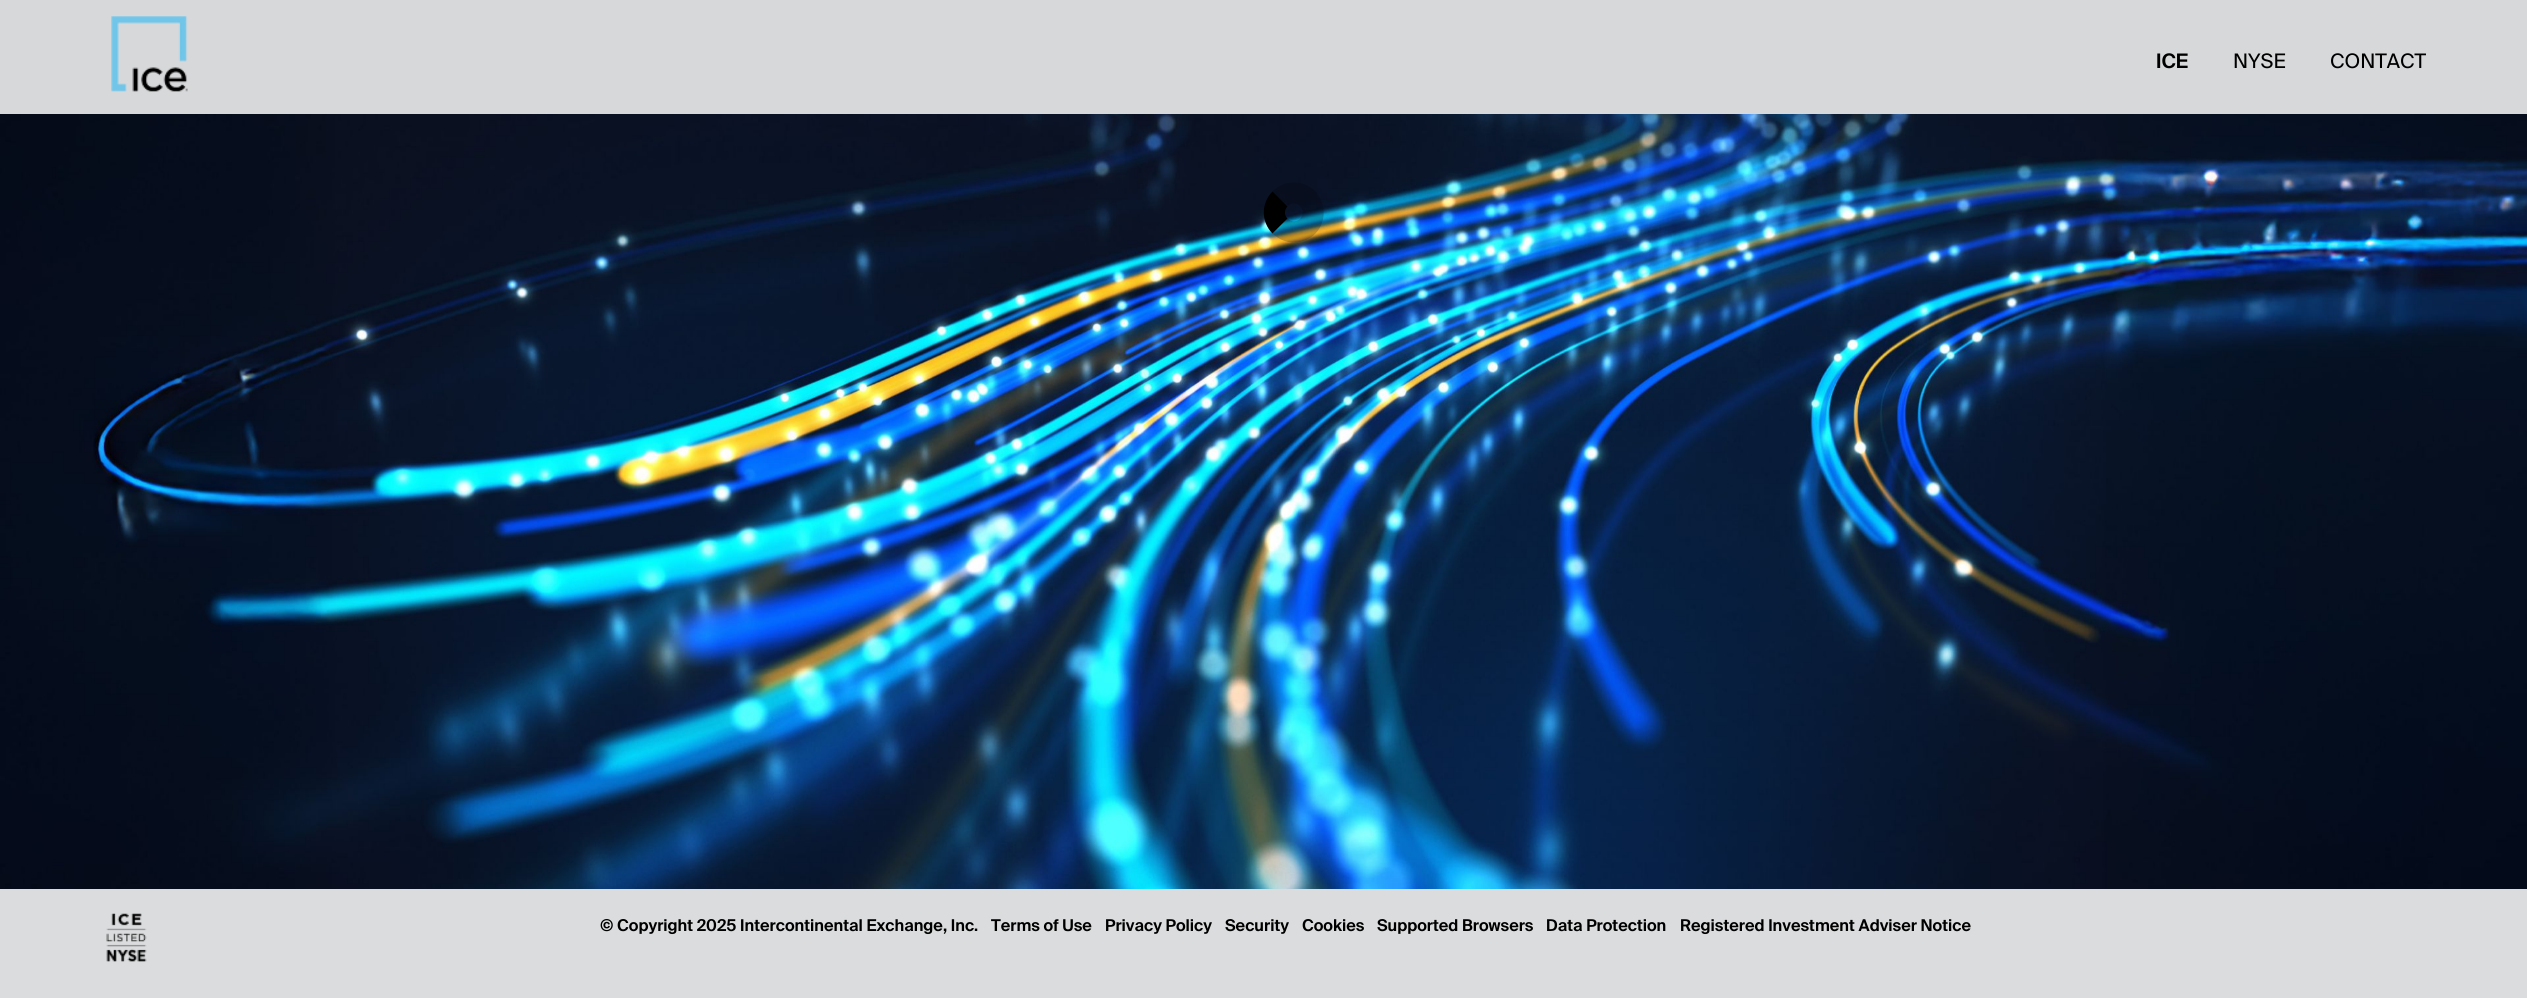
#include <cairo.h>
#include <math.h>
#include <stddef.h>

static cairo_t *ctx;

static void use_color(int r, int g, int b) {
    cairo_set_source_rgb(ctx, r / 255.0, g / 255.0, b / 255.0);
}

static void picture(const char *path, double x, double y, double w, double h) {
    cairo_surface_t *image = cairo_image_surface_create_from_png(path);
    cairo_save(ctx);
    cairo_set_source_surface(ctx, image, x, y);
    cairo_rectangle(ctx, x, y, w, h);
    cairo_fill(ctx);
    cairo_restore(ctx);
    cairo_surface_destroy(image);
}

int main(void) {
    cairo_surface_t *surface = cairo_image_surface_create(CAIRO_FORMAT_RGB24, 2527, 998);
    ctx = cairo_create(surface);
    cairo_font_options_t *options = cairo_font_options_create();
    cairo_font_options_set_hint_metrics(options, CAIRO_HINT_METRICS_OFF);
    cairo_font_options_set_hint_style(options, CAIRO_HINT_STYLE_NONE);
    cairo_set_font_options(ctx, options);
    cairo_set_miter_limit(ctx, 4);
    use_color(255, 255, 255);
    cairo_paint(ctx);
    use_color(215, 216, 218);
    cairo_rectangle(ctx, 0, 0, 2527, 114);
    cairo_fill(ctx);
    picture("img1.png", 111, 16, 77, 76);
    cairo_select_font_face(ctx, "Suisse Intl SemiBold", CAIRO_FONT_SLANT_NORMAL, CAIRO_FONT_WEIGHT_NORMAL);
    cairo_set_font_size(ctx, 20);
    use_color(0, 0, 0);
    cairo_move_to(ctx, 2156, 68);
    cairo_show_text(ctx, "ICE");
    cairo_select_font_face(ctx, "Suisse Intl", CAIRO_FONT_SLANT_NORMAL, CAIRO_FONT_WEIGHT_NORMAL);
    cairo_move_to(ctx, 2233, 68);
    cairo_show_text(ctx, "NYSE");
    cairo_move_to(ctx, 2330, 68);
    cairo_show_text(ctx, "CONTACT");
    picture("img2.png", 0, 114, 2527, 775);
    cairo_new_path(ctx);
    cairo_move_to(ctx, 1280, 199);
    cairo_curve_to(ctx, 1283.5, 195, 1288.5, 193, 1294, 193);
    cairo_curve_to(ctx, 1317, 193, 1320.5, 227, 1297.5, 231.5);
    cairo_curve_to(ctx, 1291.5, 233, 1284.5, 230.5, 1280, 226);
    cairo_set_source_rgba(ctx, 0, 0, 0, 0.2);
    cairo_set_line_width(ctx, 21.2);
    cairo_stroke(ctx);
    cairo_new_path(ctx);
    cairo_move_to(ctx, 1280, 226);
    cairo_curve_to(ctx, 1272.5, 218.5, 1272.5, 206.5, 1280, 199);
    use_color(0, 0, 0);
    cairo_stroke(ctx);
    use_color(219, 220, 221);
    cairo_rectangle(ctx, 0, 889, 2527, 109);
    cairo_fill(ctx);
    picture("img3.png", 106, 913, 41, 49);
    cairo_select_font_face(ctx, "Suisse Intl SemiBold", CAIRO_FONT_SLANT_NORMAL, CAIRO_FONT_WEIGHT_NORMAL);
    cairo_set_font_size(ctx, 16.25);
    use_color(0, 0, 0);
    cairo_move_to(ctx, 600, 931);
    cairo_show_text(ctx, "© Copyright 2025 Intercontinental Exchange, Inc.");
    cairo_move_to(ctx, 991, 931);
    cairo_show_text(ctx, "Terms of Use");
    cairo_move_to(ctx, 1105, 931);
    cairo_show_text(ctx, "Privacy Policy");
    cairo_move_to(ctx, 1225, 931);
    cairo_show_text(ctx, "Security");
    cairo_move_to(ctx, 1302, 931);
    cairo_show_text(ctx, "Cookies");
    cairo_move_to(ctx, 1377, 931);
    cairo_show_text(ctx, "Supported Browsers");
    cairo_move_to(ctx, 1546, 931);
    cairo_show_text(ctx, "Data Protection");
    cairo_move_to(ctx, 1680, 931);
    cairo_show_text(ctx, "Registered Investment Adviser Notice");
    cairo_surface_write_to_png(surface, "result.png");
    cairo_font_options_destroy(options);
    cairo_destroy(ctx);
    cairo_surface_destroy(surface);
    return 0;
}
